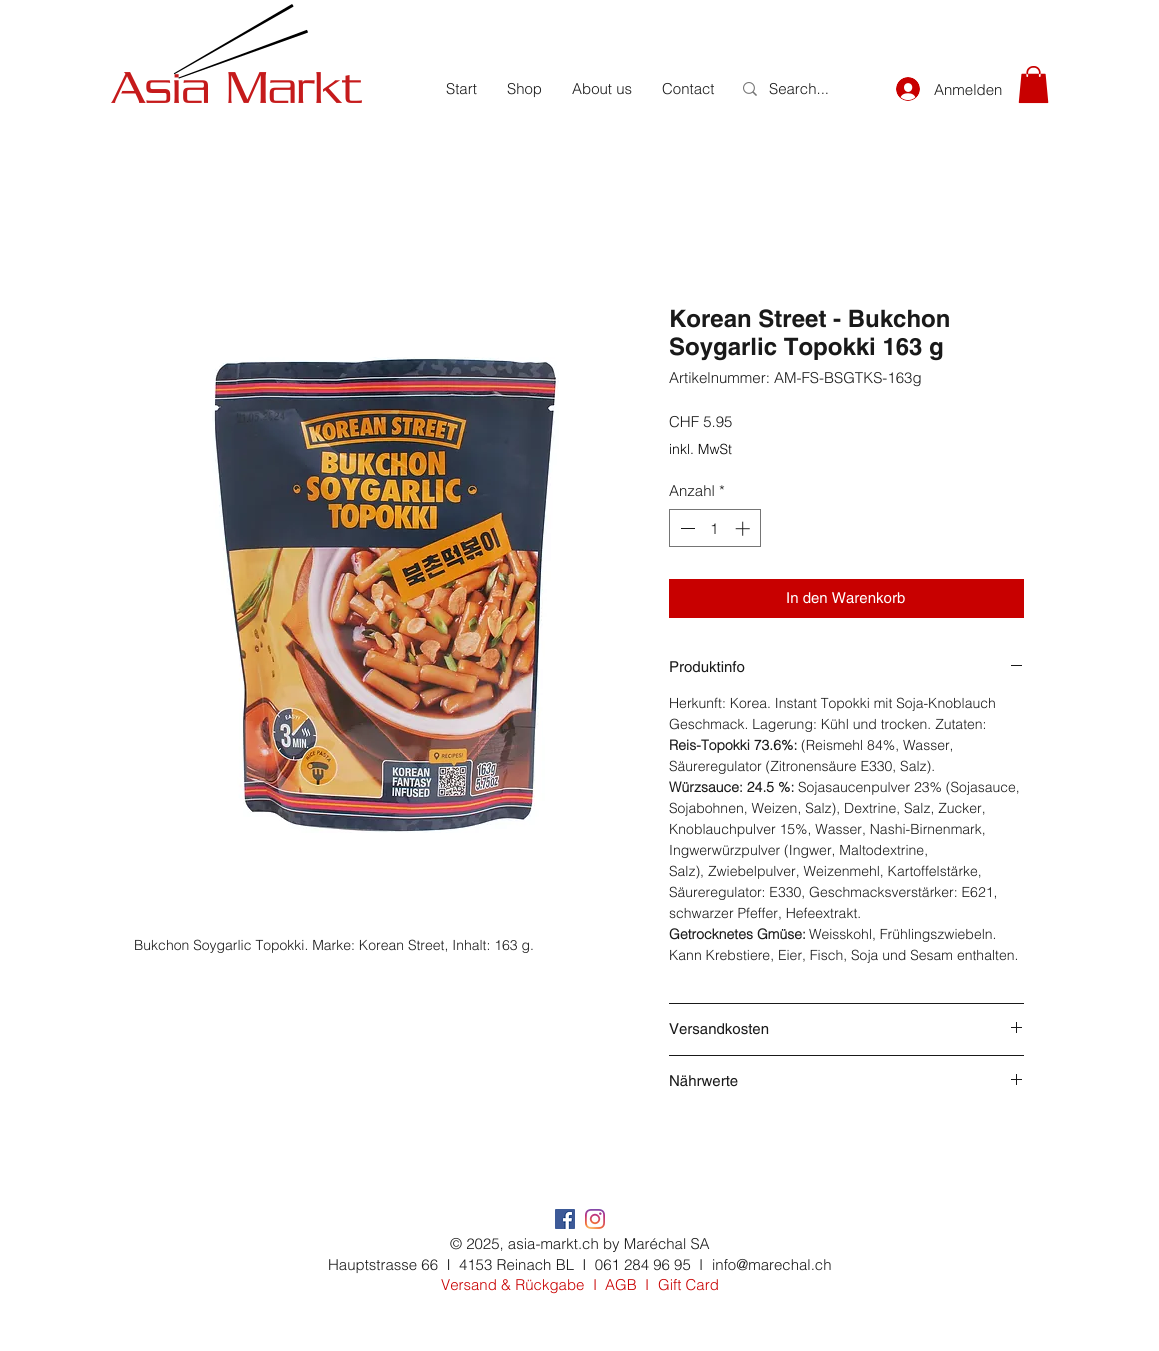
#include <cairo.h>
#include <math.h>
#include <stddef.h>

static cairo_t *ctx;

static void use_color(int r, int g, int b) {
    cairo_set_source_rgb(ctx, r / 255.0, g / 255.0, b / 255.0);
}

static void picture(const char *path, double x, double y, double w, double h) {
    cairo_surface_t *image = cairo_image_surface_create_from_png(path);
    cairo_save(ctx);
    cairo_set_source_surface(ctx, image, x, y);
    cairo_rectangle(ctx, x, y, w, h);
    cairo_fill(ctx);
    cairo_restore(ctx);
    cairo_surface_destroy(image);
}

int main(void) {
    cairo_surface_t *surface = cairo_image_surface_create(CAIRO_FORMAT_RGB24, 1159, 1351);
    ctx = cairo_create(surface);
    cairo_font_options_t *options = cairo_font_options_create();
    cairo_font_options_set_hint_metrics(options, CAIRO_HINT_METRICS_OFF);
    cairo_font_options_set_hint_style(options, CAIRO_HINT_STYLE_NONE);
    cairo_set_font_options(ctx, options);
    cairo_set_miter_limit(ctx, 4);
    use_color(255, 255, 255);
    cairo_paint(ctx);
    picture("img1.png", 111, 4, 251, 99);
    cairo_select_font_face(ctx, "helvetica Light", CAIRO_FONT_SLANT_NORMAL, CAIRO_FONT_WEIGHT_NORMAL);
    cairo_set_font_size(ctx, 15);
    use_color(25, 25, 25);
    cairo_move_to(ctx, 446, 94);
    cairo_show_text(ctx, "Start");
    cairo_move_to(ctx, 507, 94);
    cairo_show_text(ctx, "Shop");
    cairo_move_to(ctx, 572, 94);
    cairo_show_text(ctx, "About us");
    cairo_move_to(ctx, 662, 94);
    cairo_show_text(ctx, "Contact");
    picture("img2.png", 743, 82, 14, 14);
    cairo_move_to(ctx, 769, 94);
    cairo_show_text(ctx, "Search...");
    picture("img3.png", 896, 77, 24, 24);
    cairo_move_to(ctx, 934, 95);
    cairo_show_text(ctx, "Anmelden");
    picture("img4.png", 1018, 66, 31, 38);
    picture("img5.png", 212, 357, 347, 476);
    cairo_set_font_size(ctx, 14);
    cairo_move_to(ctx, 134, 950);
    cairo_show_text(ctx, "Bukchon Soygarlic Topokki. Marke: Korean Street, Inhalt: 163 g.");
    cairo_select_font_face(ctx, "helvetica", CAIRO_FONT_SLANT_NORMAL, CAIRO_FONT_WEIGHT_BOLD);
    cairo_set_font_size(ctx, 24);
    cairo_move_to(ctx, 669, 327);
    cairo_show_text(ctx, "Korean Street - Bukchon");
    cairo_move_to(ctx, 669, 355);
    cairo_show_text(ctx, "Soygarlic Topokki 163 g");
    cairo_select_font_face(ctx, "helvetica Light", CAIRO_FONT_SLANT_NORMAL, CAIRO_FONT_WEIGHT_NORMAL);
    cairo_set_font_size(ctx, 15);
    cairo_move_to(ctx, 669, 383);
    cairo_show_text(ctx, "Artikelnummer: AM-FS-BSGTKS-163g");
    cairo_move_to(ctx, 669, 427);
    cairo_show_text(ctx, "CHF 5.95");
    cairo_set_font_size(ctx, 14);
    use_color(0, 0, 0);
    cairo_move_to(ctx, 669, 454);
    cairo_show_text(ctx, "inkl. MwSt");
    cairo_set_font_size(ctx, 15);
    use_color(25, 25, 25);
    cairo_move_to(ctx, 669, 496);
    cairo_show_text(ctx, "Anzahl *");
    cairo_rectangle(ctx, 669.5, 509.5, 91, 37);
    use_color(117, 117, 117);
    cairo_set_line_width(ctx, 1);
    cairo_stroke(ctx);
    use_color(25, 25, 25);
    cairo_rectangle(ctx, 681, 528, 14, 1);
    cairo_fill(ctx);
    cairo_move_to(ctx, 710, 534);
    cairo_show_text(ctx, "1");
    picture("img6.png", 735, 521, 15, 15);
    use_color(200, 0, 0);
    cairo_rectangle(ctx, 669, 579, 355, 39);
    cairo_fill(ctx);
    cairo_select_font_face(ctx, "helvetica", CAIRO_FONT_SLANT_NORMAL, CAIRO_FONT_WEIGHT_NORMAL);
    use_color(255, 255, 255);
    cairo_move_to(ctx, 786, 603);
    cairo_show_text(ctx, "In den Warenkorb");
    use_color(25, 25, 25);
    cairo_rectangle(ctx, 669, 1003, 355, 1);
    cairo_fill(ctx);
    cairo_move_to(ctx, 669, 672);
    cairo_show_text(ctx, "Produktinfo");
    cairo_rectangle(ctx, 1011, 665, 11, 1);
    cairo_fill(ctx);
    cairo_select_font_face(ctx, "helvetica Light", CAIRO_FONT_SLANT_NORMAL, CAIRO_FONT_WEIGHT_NORMAL);
    cairo_set_font_size(ctx, 14);
    cairo_move_to(ctx, 669, 708);
    cairo_show_text(ctx, "Herkunft: Korea. Instant Topokki mit Soja-Knoblauch");
    cairo_move_to(ctx, 669, 729);
    cairo_show_text(ctx, "Geschmack. Lagerung: Kühl und trocken. Zutaten:");
    cairo_select_font_face(ctx, "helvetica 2", CAIRO_FONT_SLANT_NORMAL, CAIRO_FONT_WEIGHT_BOLD);
    cairo_move_to(ctx, 669, 750);
    cairo_show_text(ctx, "Reis-Topokki 73.6%:");
    cairo_select_font_face(ctx, "helvetica Light", CAIRO_FONT_SLANT_NORMAL, CAIRO_FONT_WEIGHT_NORMAL);
    cairo_move_to(ctx, 801, 750);
    cairo_show_text(ctx, "(Reismehl 84%, Wasser,");
    cairo_move_to(ctx, 669, 771);
    cairo_show_text(ctx, "Säureregulator (Zitronensäure E330, Salz).");
    cairo_select_font_face(ctx, "helvetica 2", CAIRO_FONT_SLANT_NORMAL, CAIRO_FONT_WEIGHT_BOLD);
    cairo_move_to(ctx, 669, 792);
    cairo_show_text(ctx, "Würzsauce: 24.5 %:");
    cairo_select_font_face(ctx, "helvetica Light", CAIRO_FONT_SLANT_NORMAL, CAIRO_FONT_WEIGHT_NORMAL);
    cairo_move_to(ctx, 798, 792);
    cairo_show_text(ctx, "Sojasaucenpulver 23% (Sojasauce,");
    cairo_move_to(ctx, 669, 813);
    cairo_show_text(ctx, "Sojabohnen, Weizen, Salz), Dextrine, Salz, Zucker,");
    cairo_move_to(ctx, 669, 834);
    cairo_show_text(ctx, "Knoblauchpulver 15%, Wasser, Nashi-Birnenmark,");
    cairo_move_to(ctx, 669, 855);
    cairo_show_text(ctx, "Ingwerwürzpulver (Ingwer, Maltodextrine,");
    cairo_move_to(ctx, 669, 876);
    cairo_show_text(ctx, "Salz), Zwiebelpulver, Weizenmehl, Kartoffelstärke,");
    cairo_move_to(ctx, 669, 897);
    cairo_show_text(ctx, "Säureregulator: E330, Geschmacksverstärker: E621,");
    cairo_move_to(ctx, 669, 918);
    cairo_show_text(ctx, "schwarzer Pfeffer, Hefeextrakt.");
    cairo_select_font_face(ctx, "helvetica 2", CAIRO_FONT_SLANT_NORMAL, CAIRO_FONT_WEIGHT_BOLD);
    cairo_move_to(ctx, 669, 939);
    cairo_show_text(ctx, "Getrocknetes Gmüse:");
    cairo_select_font_face(ctx, "helvetica Light", CAIRO_FONT_SLANT_NORMAL, CAIRO_FONT_WEIGHT_NORMAL);
    cairo_move_to(ctx, 809, 939);
    cairo_show_text(ctx, "Weisskohl, Frühlingszwiebeln.");
    cairo_move_to(ctx, 669, 960);
    cairo_show_text(ctx, "Kann Krebstiere, Eier, Fisch, Soja und Sesam enthalten.");
    cairo_rectangle(ctx, 669, 1055, 355, 1);
    cairo_fill(ctx);
    cairo_select_font_face(ctx, "helvetica", CAIRO_FONT_SLANT_NORMAL, CAIRO_FONT_WEIGHT_NORMAL);
    cairo_set_font_size(ctx, 15);
    cairo_move_to(ctx, 669, 1034);
    cairo_show_text(ctx, "Versandkosten");
    picture("img7.png", 1011, 1022, 11, 11);
    cairo_move_to(ctx, 669, 1086);
    cairo_show_text(ctx, "Nährwerte");
    picture("img7.png", 1011, 1074, 11, 11);
    picture("img8.png", 555, 1209, 20, 20);
    picture("img9.png", 585, 1209, 20, 20);
    cairo_select_font_face(ctx, "helvetica Light", CAIRO_FONT_SLANT_NORMAL, CAIRO_FONT_WEIGHT_NORMAL);
    cairo_move_to(ctx, 450, 1249);
    cairo_show_text(ctx, "© 2025, asia-markt.ch by Maréchal SA");
    cairo_move_to(ctx, 328, 1270);
    cairo_show_text(ctx, "Hauptstrasse 66  I  4153 Reinach BL  I  061 284 96 95  I");
    cairo_move_to(ctx, 712, 1270);
    cairo_show_text(ctx, "info@marechal.ch");
    use_color(200, 0, 0);
    cairo_move_to(ctx, 441, 1290);
    cairo_show_text(ctx, "Versand & Rückgabe");
    cairo_move_to(ctx, 593, 1290);
    cairo_show_text(ctx, "I");
    cairo_move_to(ctx, 605, 1290);
    cairo_show_text(ctx, "AGB");
    cairo_move_to(ctx, 645, 1290);
    cairo_show_text(ctx, "I");
    cairo_move_to(ctx, 658, 1290);
    cairo_show_text(ctx, "Gift Card");
    cairo_surface_write_to_png(surface, "result.png");
    cairo_font_options_destroy(options);
    cairo_destroy(ctx);
    cairo_surface_destroy(surface);
    return 0;
}
